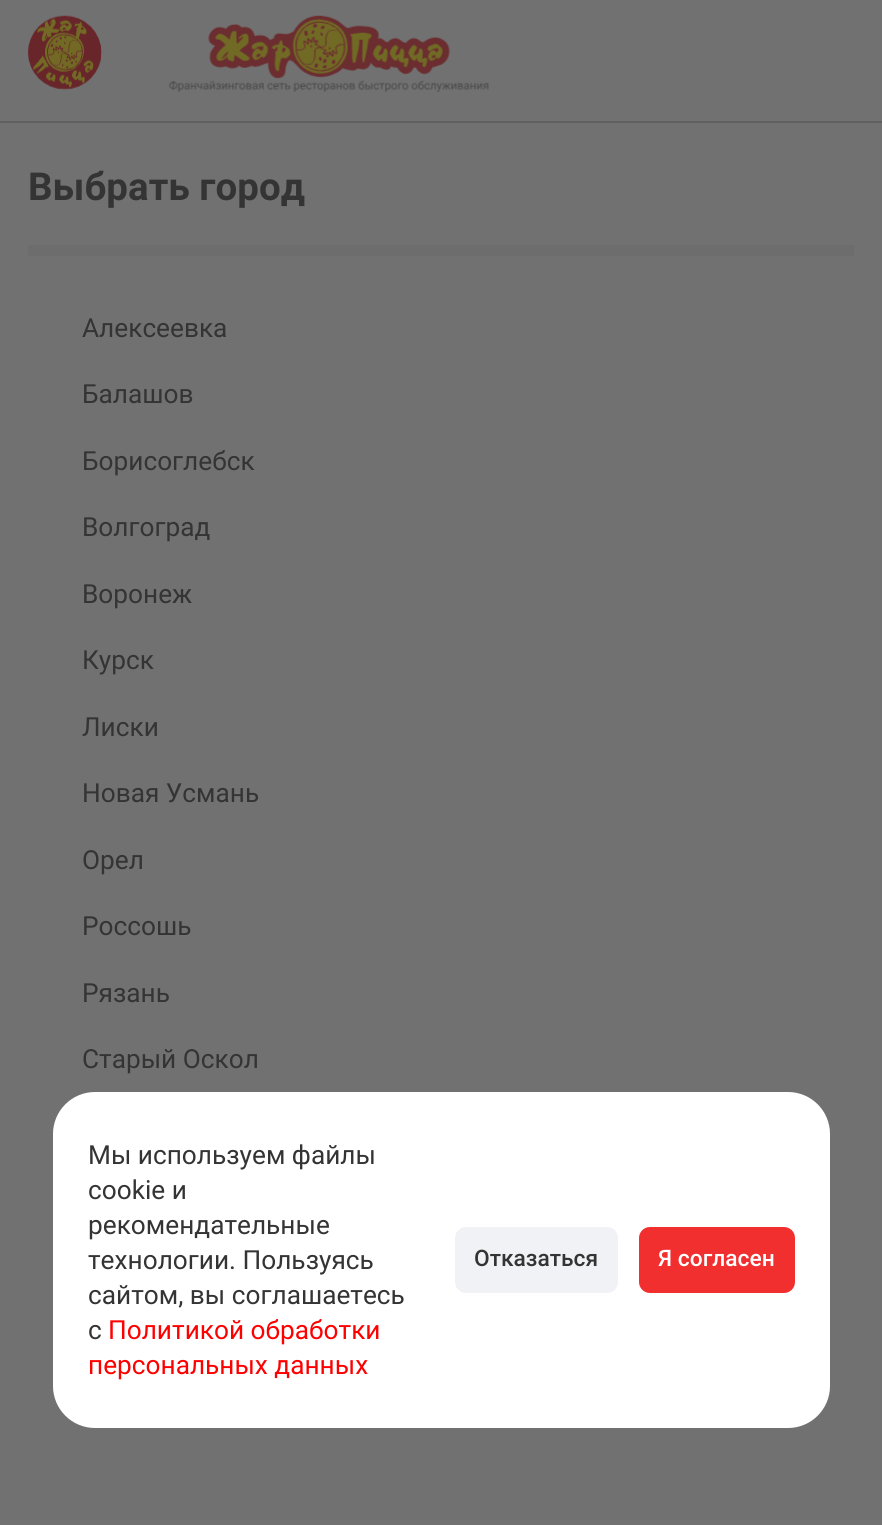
#include <cairo.h>
#include <math.h>
#include <stddef.h>

static cairo_t *ctx;

static void use_color(int r, int g, int b) {
    cairo_set_source_rgb(ctx, r / 255.0, g / 255.0, b / 255.0);
}

static void round_rect(double x, double y, double w, double h, double r) {
    cairo_new_sub_path(ctx);
    cairo_arc(ctx, x + w - r, y + h - r, r, 0, M_PI / 2);
    cairo_arc(ctx, x + r, y + h - r, r, M_PI / 2, M_PI);
    cairo_arc(ctx, x + r, y + r, r, M_PI, 1.5 * M_PI);
    cairo_arc(ctx, x + w - r, y + r, r, 1.5 * M_PI, 2 * M_PI);
    cairo_close_path(ctx);
}

static void picture(const char *path, double x, double y, double w, double h) {
    cairo_surface_t *image = cairo_image_surface_create_from_png(path);
    cairo_save(ctx);
    cairo_set_source_surface(ctx, image, x, y);
    cairo_rectangle(ctx, x, y, w, h);
    cairo_fill(ctx);
    cairo_restore(ctx);
    cairo_surface_destroy(image);
}

int main(void) {
    cairo_surface_t *surface = cairo_image_surface_create(CAIRO_FORMAT_RGB24, 882, 1525);
    ctx = cairo_create(surface);
    cairo_font_options_t *options = cairo_font_options_create();
    cairo_font_options_set_hint_metrics(options, CAIRO_HINT_METRICS_OFF);
    cairo_font_options_set_hint_style(options, CAIRO_HINT_STYLE_NONE);
    cairo_set_font_options(ctx, options);
    cairo_set_miter_limit(ctx, 4);
    use_color(113, 113, 113);
    cairo_paint(ctx);
    use_color(96, 96, 96);
    cairo_rectangle(ctx, 0, 121, 882, 2);
    cairo_fill(ctx);
    picture("img1.png", 28, 15, 74, 75);
    picture("img2.png", 168, 15, 321, 77);
    use_color(109, 109, 110);
    cairo_rectangle(ctx, 28, 245, 826, 11);
    cairo_fill(ctx);
    cairo_select_font_face(ctx, "Roboto", CAIRO_FONT_SLANT_NORMAL, CAIRO_FONT_WEIGHT_BOLD);
    cairo_set_font_size(ctx, 38.5);
    use_color(52, 52, 52);
    cairo_move_to(ctx, 28, 200);
    cairo_show_text(ctx, "Выбрать город");
    cairo_select_font_face(ctx, "Roboto", CAIRO_FONT_SLANT_NORMAL, CAIRO_FONT_WEIGHT_NORMAL);
    cairo_set_font_size(ctx, 26.25);
    cairo_move_to(ctx, 82, 337);
    cairo_show_text(ctx, "Алексеевка");
    cairo_move_to(ctx, 82, 403);
    cairo_show_text(ctx, "Балашов");
    cairo_move_to(ctx, 82, 470);
    cairo_show_text(ctx, "Борисоглебск");
    cairo_move_to(ctx, 82, 536);
    cairo_show_text(ctx, "Волгоград");
    cairo_move_to(ctx, 82, 603);
    cairo_show_text(ctx, "Воронеж");
    cairo_move_to(ctx, 82, 669);
    cairo_show_text(ctx, "Курск");
    cairo_move_to(ctx, 82, 736);
    cairo_show_text(ctx, "Лиски");
    cairo_move_to(ctx, 82, 802);
    cairo_show_text(ctx, "Новая Усмань");
    cairo_move_to(ctx, 82, 869);
    cairo_show_text(ctx, "Орел");
    cairo_move_to(ctx, 82, 935);
    cairo_show_text(ctx, "Россошь");
    cairo_move_to(ctx, 82, 1002);
    cairo_show_text(ctx, "Рязань");
    cairo_move_to(ctx, 82, 1068);
    cairo_show_text(ctx, "Старый Оскол");
    use_color(255, 255, 255);
    round_rect(53, 1092, 777, 336, 42);
    cairo_fill(ctx);
    use_color(52, 52, 52);
    cairo_move_to(ctx, 88, 1164);
    cairo_show_text(ctx, "Мы используем файлы");
    cairo_move_to(ctx, 88, 1199);
    cairo_show_text(ctx, "cookie и");
    cairo_move_to(ctx, 88, 1234);
    cairo_show_text(ctx, "рекомендательные");
    cairo_move_to(ctx, 88, 1269);
    cairo_show_text(ctx, "технологии. Пользуясь");
    cairo_move_to(ctx, 88, 1304);
    cairo_show_text(ctx, "сайтом, вы соглашаетесь");
    cairo_move_to(ctx, 88, 1339);
    cairo_show_text(ctx, "с");
    use_color(255, 0, 0);
    cairo_move_to(ctx, 108, 1339);
    cairo_show_text(ctx, "Политикой обработки");
    cairo_move_to(ctx, 88, 1374);
    cairo_show_text(ctx, "персональных данных");
    use_color(241, 242, 245);
    round_rect(455, 1227, 163, 66, 11);
    cairo_fill(ctx);
    cairo_select_font_face(ctx, "Roboto Medium", CAIRO_FONT_SLANT_NORMAL, CAIRO_FONT_WEIGHT_NORMAL);
    cairo_set_font_size(ctx, 22.75);
    use_color(52, 52, 52);
    cairo_move_to(ctx, 474, 1266);
    cairo_show_text(ctx, "Отказаться");
    use_color(240, 47, 46);
    round_rect(639, 1227, 156, 66, 11);
    cairo_fill(ctx);
    use_color(255, 255, 255);
    cairo_move_to(ctx, 658, 1266);
    cairo_show_text(ctx, "Я согласен");
    cairo_surface_write_to_png(surface, "result.png");
    cairo_font_options_destroy(options);
    cairo_destroy(ctx);
    cairo_surface_destroy(surface);
    return 0;
}
